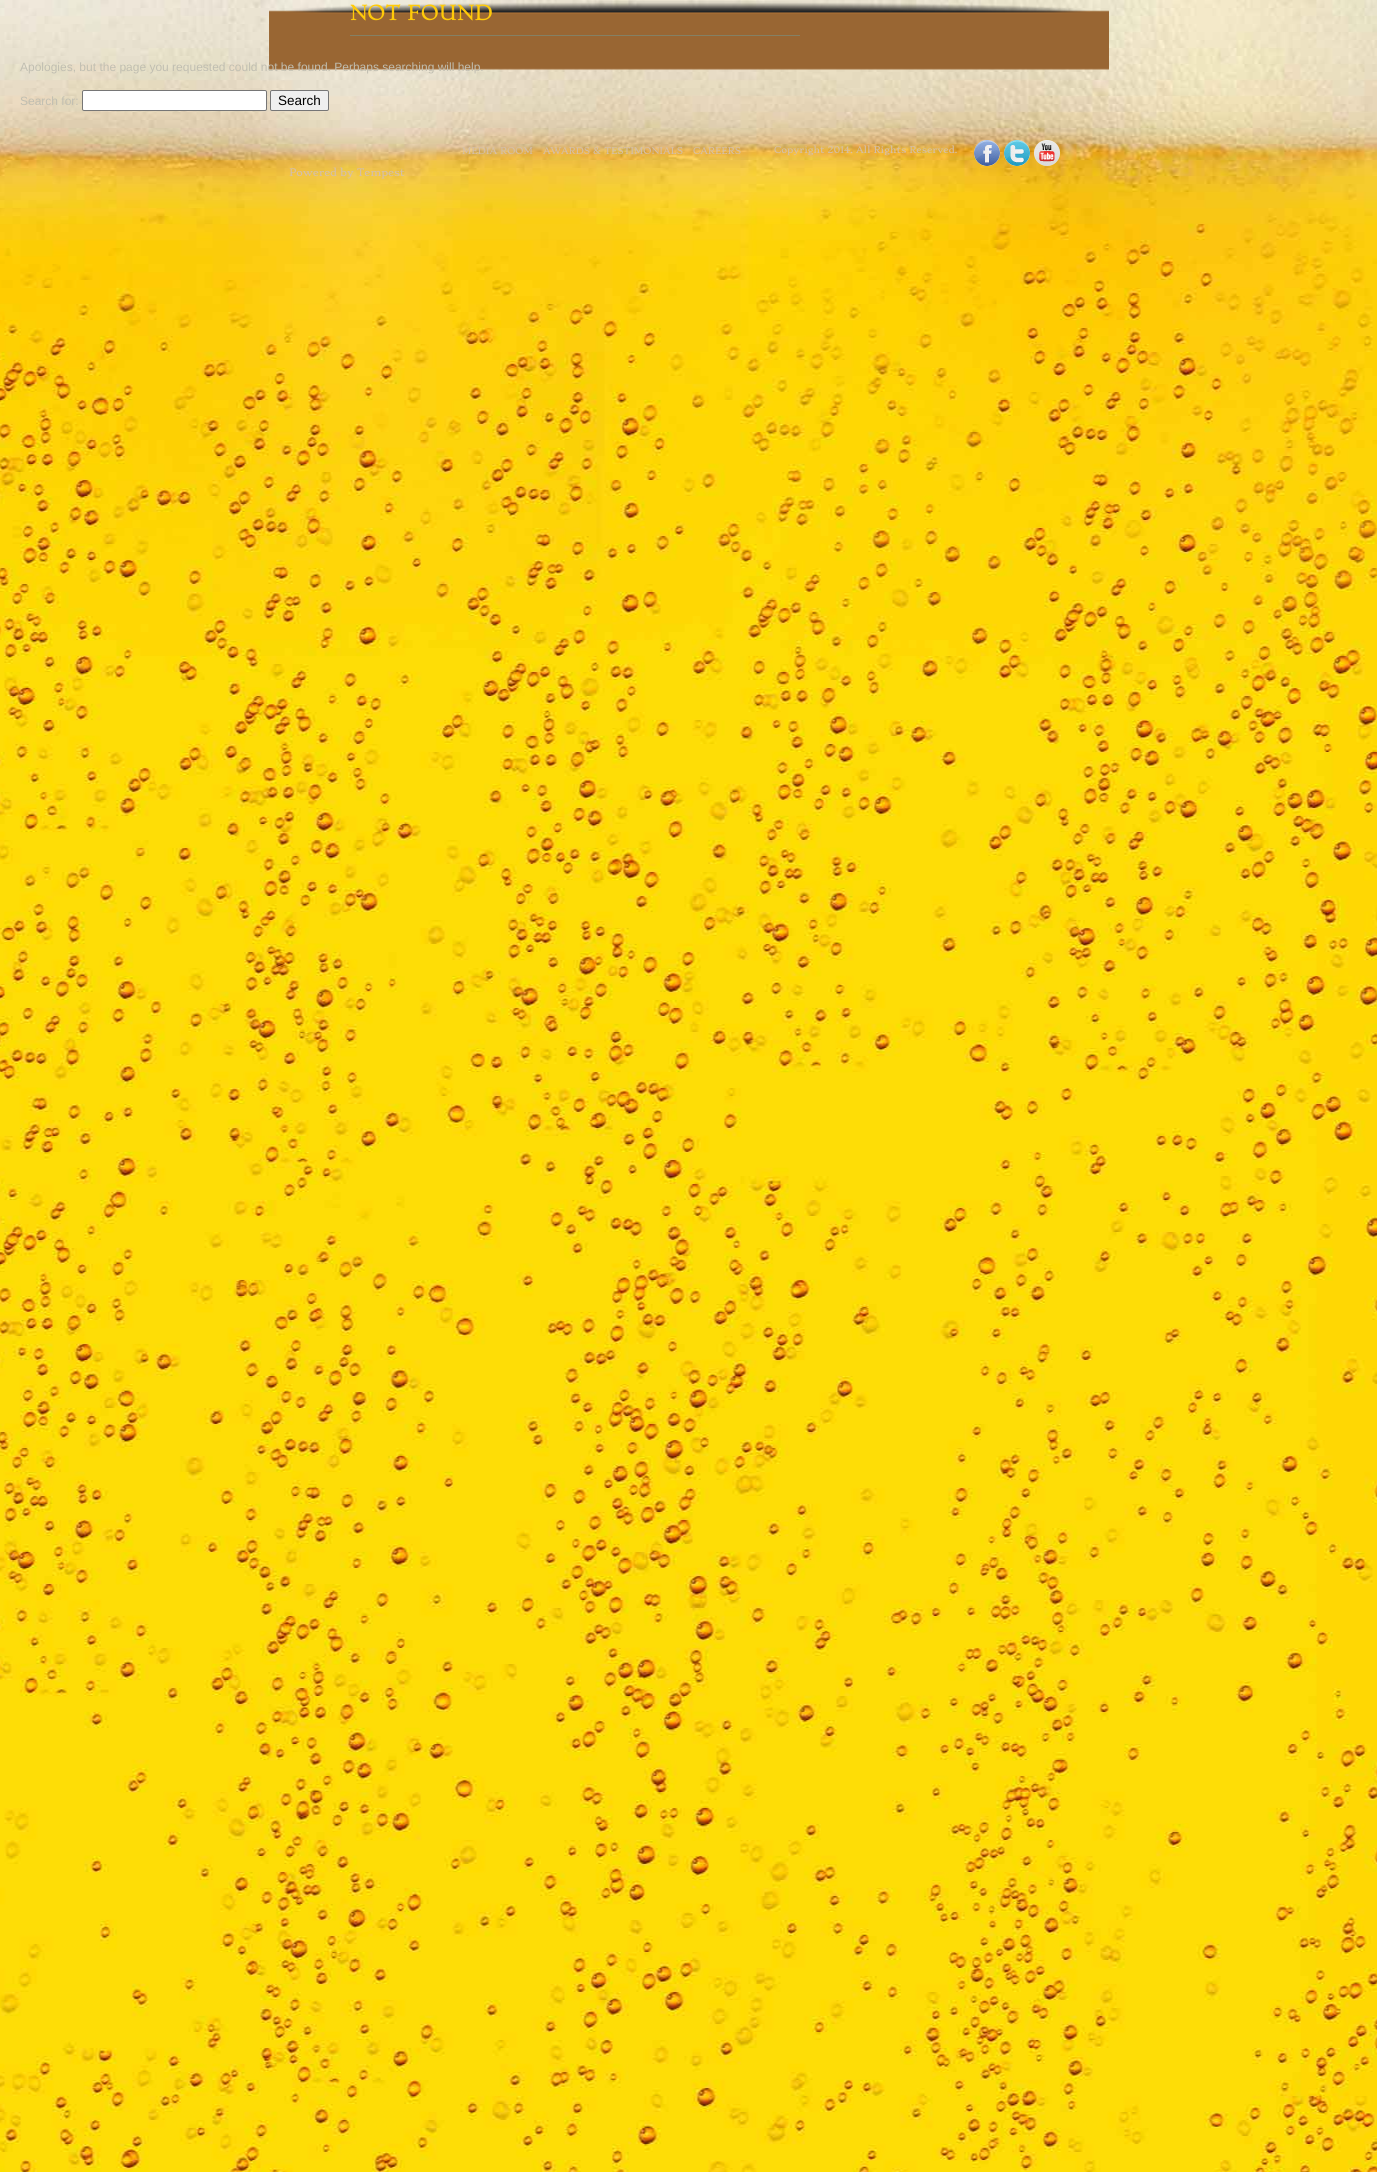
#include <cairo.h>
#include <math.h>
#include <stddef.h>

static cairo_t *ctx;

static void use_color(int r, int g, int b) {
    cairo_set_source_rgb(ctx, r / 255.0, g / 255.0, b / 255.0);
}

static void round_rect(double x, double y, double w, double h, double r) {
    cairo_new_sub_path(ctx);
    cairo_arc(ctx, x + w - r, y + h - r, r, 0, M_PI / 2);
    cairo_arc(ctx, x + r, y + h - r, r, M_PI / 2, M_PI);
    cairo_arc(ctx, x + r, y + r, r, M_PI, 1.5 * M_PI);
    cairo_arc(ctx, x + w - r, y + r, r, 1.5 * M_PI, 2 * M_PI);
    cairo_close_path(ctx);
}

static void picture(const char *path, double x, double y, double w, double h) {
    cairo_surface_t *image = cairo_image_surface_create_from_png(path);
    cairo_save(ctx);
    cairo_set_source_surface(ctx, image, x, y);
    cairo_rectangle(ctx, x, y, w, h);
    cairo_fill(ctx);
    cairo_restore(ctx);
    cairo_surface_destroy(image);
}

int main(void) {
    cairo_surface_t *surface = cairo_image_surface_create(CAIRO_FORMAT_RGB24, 1377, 2172);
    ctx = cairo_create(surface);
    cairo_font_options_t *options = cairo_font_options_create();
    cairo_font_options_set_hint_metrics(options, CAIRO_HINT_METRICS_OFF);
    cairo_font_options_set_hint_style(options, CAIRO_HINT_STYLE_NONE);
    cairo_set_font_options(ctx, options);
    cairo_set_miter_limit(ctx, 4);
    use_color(255, 255, 255);
    cairo_paint(ctx);
    picture("img1.png", 0, 0, 1377, 2172);
    picture("img2.png", 269, 1, 840, 69);
    use_color(132, 128, 101);
    cairo_rectangle(ctx, 350, 35, 450, 1);
    cairo_fill(ctx);
    cairo_select_font_face(ctx, "Stoke", CAIRO_FONT_SLANT_NORMAL, CAIRO_FONT_WEIGHT_NORMAL);
    cairo_set_font_size(ctx, 20);
    use_color(255, 203, 8);
    cairo_move_to(ctx, 350, 20);
    cairo_show_text(ctx, "NOT FOUND");
    cairo_select_font_face(ctx, "Liberation Sans", CAIRO_FONT_SLANT_NORMAL, CAIRO_FONT_WEIGHT_NORMAL);
    cairo_set_font_size(ctx, 12);
    use_color(192, 190, 177);
    cairo_move_to(ctx, 20, 71);
    cairo_show_text(ctx, "Apologies, but the page you requested could not be found. Perhaps searching will help.");
    cairo_move_to(ctx, 20, 105);
    cairo_show_text(ctx, "Search for:");
    use_color(255, 255, 255);
    round_rect(82.5, 90.5, 184, 20, 1.5);
    cairo_fill_preserve(ctx);
    use_color(118, 118, 118);
    cairo_set_line_width(ctx, 1);
    cairo_stroke(ctx);
    use_color(239, 239, 239);
    round_rect(270.5, 90.5, 58, 20, 1.5);
    cairo_fill_preserve(ctx);
    use_color(118, 118, 118);
    cairo_stroke(ctx);
    cairo_set_font_size(ctx, 13.5);
    use_color(0, 0, 0);
    cairo_move_to(ctx, 278, 105);
    cairo_show_text(ctx, "Search");
    cairo_select_font_face(ctx, "Stoke", CAIRO_FONT_SLANT_NORMAL, CAIRO_FONT_WEIGHT_NORMAL);
    cairo_set_font_size(ctx, 9);
    use_color(212, 191, 170);
    cairo_move_to(ctx, 462, 154);
    cairo_show_text(ctx, "MEDIA ROOM");
    cairo_move_to(ctx, 543, 154);
    cairo_show_text(ctx, "AWARDS & TESTIMONIALS");
    cairo_move_to(ctx, 693, 154);
    cairo_show_text(ctx, "CAREERS");
    cairo_move_to(ctx, 774, 153);
    cairo_show_text(ctx, "Copyright 2014. All Rights Reserved.");
    picture("img3.png", 974, 140, 26, 26);
    picture("img4.png", 1004, 140, 26, 26);
    picture("img5.png", 1034, 140, 26, 26);
    cairo_set_font_size(ctx, 10);
    cairo_move_to(ctx, 289, 176);
    cairo_show_text(ctx, "Powered by Tempest");
    cairo_surface_write_to_png(surface, "result.png");
    cairo_font_options_destroy(options);
    cairo_destroy(ctx);
    cairo_surface_destroy(surface);
    return 0;
}
